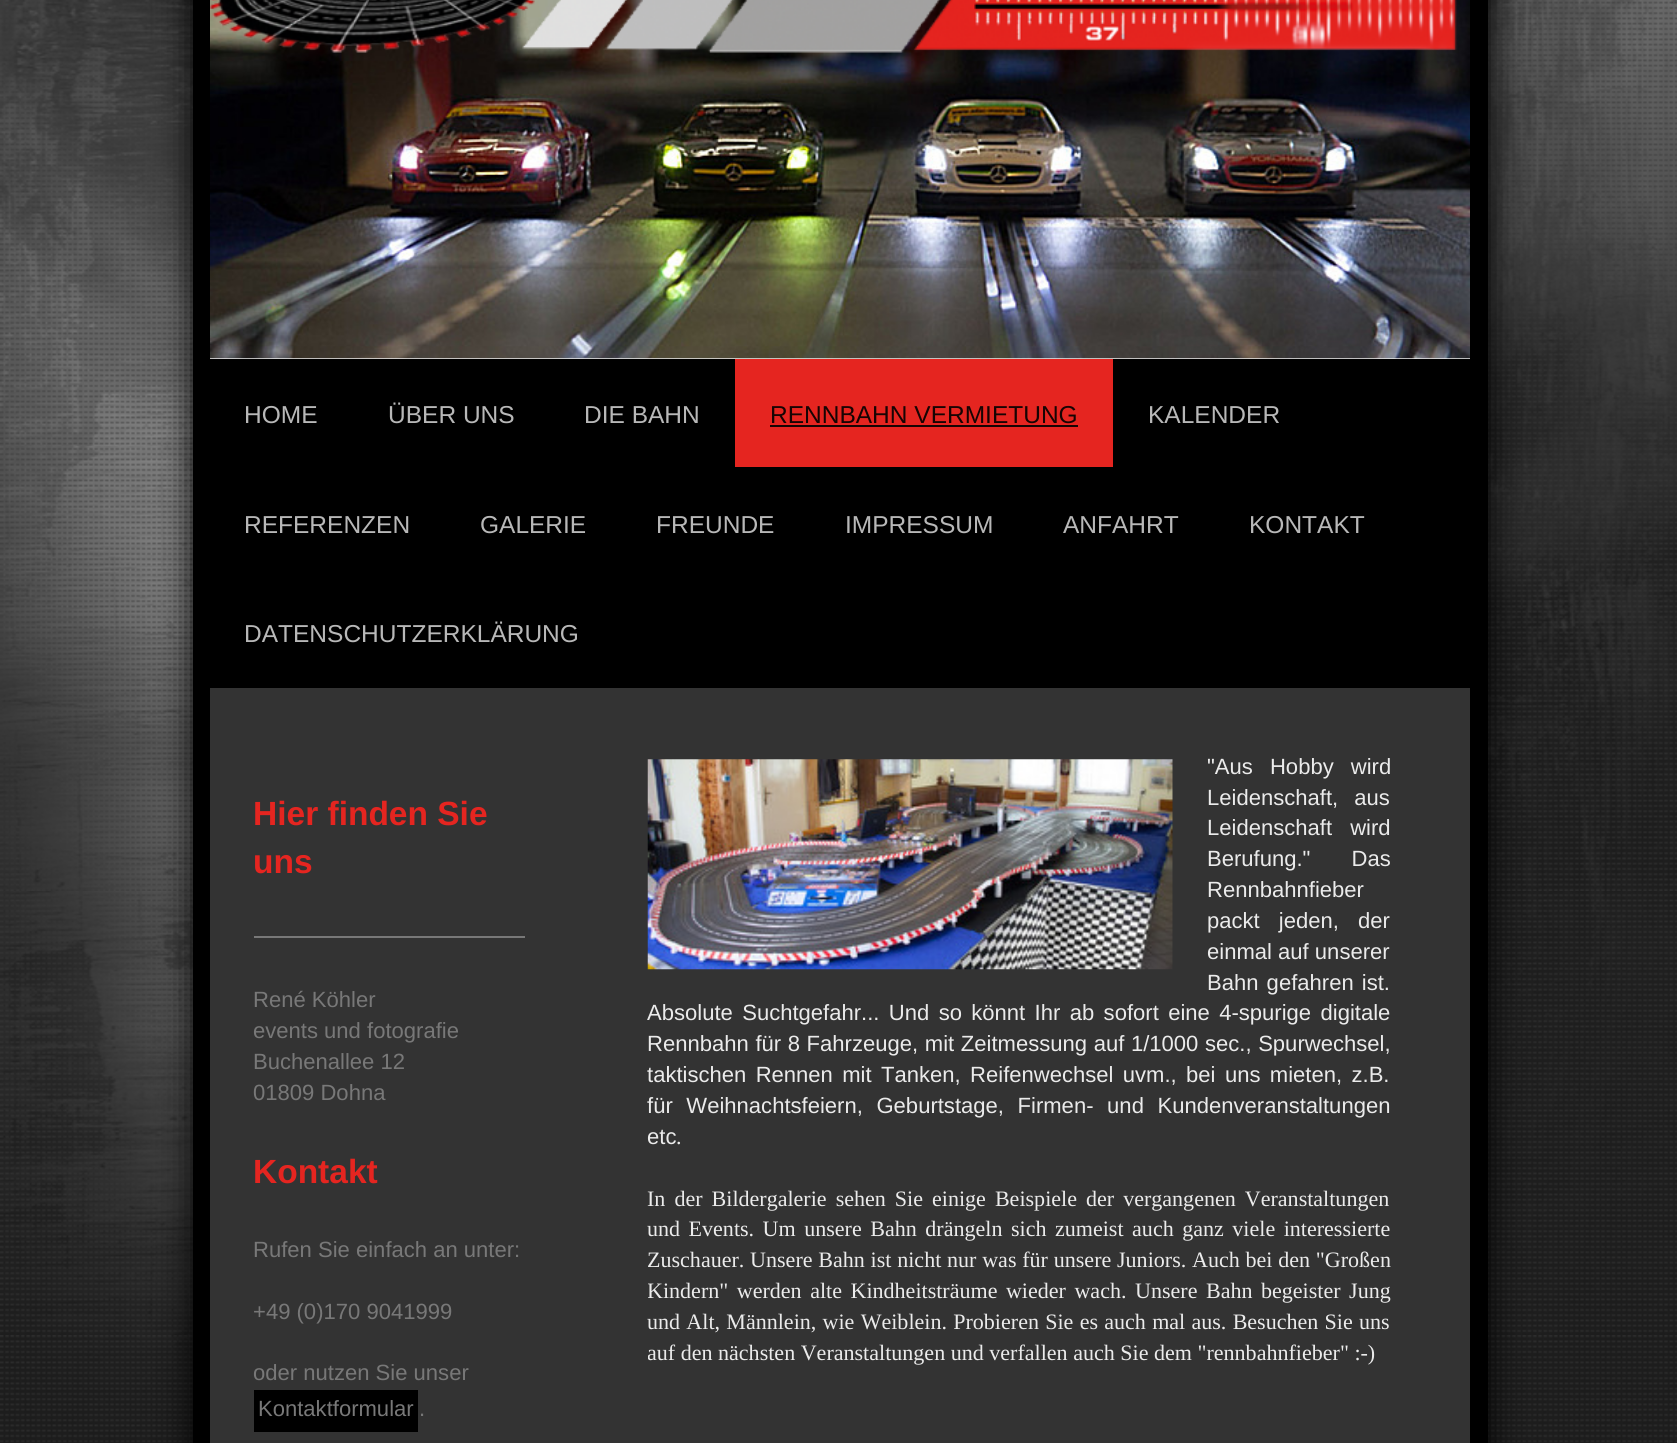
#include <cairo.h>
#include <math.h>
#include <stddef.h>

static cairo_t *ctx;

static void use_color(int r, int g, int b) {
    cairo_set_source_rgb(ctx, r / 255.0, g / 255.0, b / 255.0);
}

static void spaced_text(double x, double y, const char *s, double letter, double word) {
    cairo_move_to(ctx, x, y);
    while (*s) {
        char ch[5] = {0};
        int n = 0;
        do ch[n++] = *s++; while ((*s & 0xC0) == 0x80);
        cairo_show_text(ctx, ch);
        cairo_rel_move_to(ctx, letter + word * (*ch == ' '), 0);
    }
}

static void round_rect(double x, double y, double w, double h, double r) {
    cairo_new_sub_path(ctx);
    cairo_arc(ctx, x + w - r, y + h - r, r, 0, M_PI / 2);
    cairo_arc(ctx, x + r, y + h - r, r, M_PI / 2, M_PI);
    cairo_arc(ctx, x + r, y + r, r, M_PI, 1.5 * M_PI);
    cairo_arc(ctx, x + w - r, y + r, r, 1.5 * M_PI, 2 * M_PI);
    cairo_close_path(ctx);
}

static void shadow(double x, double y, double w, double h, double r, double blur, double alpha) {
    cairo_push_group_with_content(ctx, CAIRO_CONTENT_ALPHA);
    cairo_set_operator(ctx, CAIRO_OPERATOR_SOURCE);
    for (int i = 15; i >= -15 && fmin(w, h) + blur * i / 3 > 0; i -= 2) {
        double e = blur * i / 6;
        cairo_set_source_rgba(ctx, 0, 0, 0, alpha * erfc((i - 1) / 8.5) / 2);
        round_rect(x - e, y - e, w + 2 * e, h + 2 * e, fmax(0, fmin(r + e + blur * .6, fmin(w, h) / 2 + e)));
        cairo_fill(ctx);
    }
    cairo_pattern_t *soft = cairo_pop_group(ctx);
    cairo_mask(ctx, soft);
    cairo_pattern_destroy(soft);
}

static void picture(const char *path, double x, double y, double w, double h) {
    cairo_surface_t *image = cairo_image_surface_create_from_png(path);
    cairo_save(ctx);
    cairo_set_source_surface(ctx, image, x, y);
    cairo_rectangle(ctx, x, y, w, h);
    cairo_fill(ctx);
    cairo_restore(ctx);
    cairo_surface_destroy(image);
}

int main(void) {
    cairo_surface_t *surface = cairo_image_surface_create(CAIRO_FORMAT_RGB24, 1677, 1443);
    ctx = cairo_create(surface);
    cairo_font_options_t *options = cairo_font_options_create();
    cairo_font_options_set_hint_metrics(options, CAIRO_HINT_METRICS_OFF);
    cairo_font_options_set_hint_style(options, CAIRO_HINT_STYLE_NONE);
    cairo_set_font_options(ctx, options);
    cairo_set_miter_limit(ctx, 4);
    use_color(255, 255, 255);
    cairo_paint(ctx);
    picture("img1.png", 0, 0, 1677, 1443);
    use_color(0, 0, 0);
    shadow(193, -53, 1295, 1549, 0, 17.5, 1);
    use_color(0, 0, 0);
    cairo_rectangle(ctx, 193, 0, 1295, 1443);
    cairo_fill(ctx);
    use_color(238, 238, 238);
    cairo_rectangle(ctx, 210, 358, 1260, 1);
    cairo_fill(ctx);
    picture("img2.png", 210, 0, 1260, 359);
    picture("img3.png", 210, 0, 1247, 53);
    cairo_select_font_face(ctx, "Liberation Sans", CAIRO_FONT_SLANT_NORMAL, CAIRO_FONT_WEIGHT_NORMAL);
    cairo_set_font_size(ctx, 24.5);
    use_color(184, 184, 184);
    cairo_move_to(ctx, 244, 423);
    cairo_show_text(ctx, "HOME");
    cairo_move_to(ctx, 388, 423);
    cairo_show_text(ctx, "ÜBER UNS");
    cairo_move_to(ctx, 584, 423);
    cairo_show_text(ctx, "DIE BAHN");
    use_color(229, 37, 32);
    cairo_rectangle(ctx, 735, 359, 378, 108);
    cairo_fill(ctx);
    use_color(23, 4, 3);
    cairo_move_to(ctx, 770, 423);
    cairo_show_text(ctx, "RENNBAHN VERMIETUNG");
    cairo_rectangle(ctx, 770, 425, 308, 2);
    cairo_fill(ctx);
    use_color(184, 184, 184);
    cairo_move_to(ctx, 1148, 423);
    cairo_show_text(ctx, "KALENDER");
    cairo_move_to(ctx, 244, 533);
    cairo_show_text(ctx, "REFERENZEN");
    cairo_move_to(ctx, 480, 533);
    cairo_show_text(ctx, "GALERIE");
    cairo_move_to(ctx, 656, 533);
    cairo_show_text(ctx, "FREUNDE");
    cairo_move_to(ctx, 845, 533);
    cairo_show_text(ctx, "IMPRESSUM");
    cairo_move_to(ctx, 1063, 533);
    cairo_show_text(ctx, "ANFAHRT");
    cairo_move_to(ctx, 1249, 533);
    cairo_show_text(ctx, "KONTAKT");
    cairo_move_to(ctx, 244, 642);
    cairo_show_text(ctx, "DATENSCHUTZERKLÄRUNG");
    use_color(51, 51, 51);
    cairo_rectangle(ctx, 210, 688, 1260, 755);
    cairo_fill(ctx);
    cairo_select_font_face(ctx, "Liberation Sans", CAIRO_FONT_SLANT_NORMAL, CAIRO_FONT_WEIGHT_BOLD);
    cairo_set_font_size(ctx, 33.5);
    use_color(229, 37, 32);
    cairo_move_to(ctx, 253, 825);
    cairo_show_text(ctx, "Hier finden Sie");
    cairo_move_to(ctx, 253, 873);
    cairo_show_text(ctx, "uns");
    use_color(120, 120, 120);
    cairo_rectangle(ctx, 254, 936, 271, 2);
    cairo_fill(ctx);
    cairo_select_font_face(ctx, "Liberation Sans", CAIRO_FONT_SLANT_NORMAL, CAIRO_FONT_WEIGHT_NORMAL);
    cairo_set_font_size(ctx, 22.05);
    cairo_move_to(ctx, 253, 1007);
    cairo_show_text(ctx, "René Köhler");
    cairo_move_to(ctx, 253, 1038);
    cairo_show_text(ctx, "events und fotografie");
    cairo_move_to(ctx, 253, 1069);
    cairo_show_text(ctx, "Buchenallee 12");
    cairo_move_to(ctx, 253, 1100);
    cairo_show_text(ctx, "01809 Dohna");
    cairo_select_font_face(ctx, "Liberation Sans", CAIRO_FONT_SLANT_NORMAL, CAIRO_FONT_WEIGHT_BOLD);
    cairo_set_font_size(ctx, 33.5);
    use_color(229, 37, 32);
    cairo_move_to(ctx, 253, 1183);
    cairo_show_text(ctx, "Kontakt");
    cairo_select_font_face(ctx, "Liberation Sans", CAIRO_FONT_SLANT_NORMAL, CAIRO_FONT_WEIGHT_NORMAL);
    cairo_set_font_size(ctx, 22.05);
    use_color(120, 120, 120);
    cairo_move_to(ctx, 253, 1257);
    cairo_show_text(ctx, "Rufen Sie einfach an unter:");
    cairo_move_to(ctx, 253, 1319);
    cairo_show_text(ctx, "+49 (0)170 9041999");
    cairo_move_to(ctx, 253, 1380);
    cairo_show_text(ctx, "oder nutzen Sie unser");
    use_color(0, 0, 0);
    cairo_rectangle(ctx, 254, 1390, 164, 42);
    cairo_fill(ctx);
    use_color(120, 120, 120);
    cairo_move_to(ctx, 258, 1416);
    cairo_show_text(ctx, "Kontaktformular");
    cairo_move_to(ctx, 419, 1416);
    cairo_show_text(ctx, ".");
    use_color(235, 235, 235);
    spaced_text(1207, 774, "\"Aus Hobby wird", 0, 11);
    spaced_text(1207, 805, "Leidenschaft, aus", 0, 10);
    spaced_text(1207, 835, "Leidenschaft wird", 0, 12);
    spaced_text(1207, 866, "Berufung.\" Das", 0, 35);
    cairo_move_to(ctx, 1207, 897);
    cairo_show_text(ctx, "Rennbahnfieber");
    spaced_text(1207, 928, "packt jeden, der", 0, 13);
    cairo_move_to(ctx, 1207, 959);
    cairo_show_text(ctx, "einmal auf unserer");
    spaced_text(1207, 990, "Bahn gefahren ist.", 0, 2);
    spaced_text(647, 1020, "Absolute Suchtgefahr... Und so könnt Ihr ab sofort eine 4-spurige digitale", 0, 3.25);
    spaced_text(647, 1051, "Rennbahn für 8 Fahrzeuge, mit Zeitmessung auf 1/1000 sec., Spurwechsel,", 0, 0.5);
    spaced_text(647, 1082, "taktischen Rennen mit Tanken, Reifenwechsel uvm., bei uns mieten, z.B.", 0, 3.25);
    spaced_text(647, 1113, "für Weihnachtsfeiern, Geburtstage, Firmen- und Kundenveranstaltungen", 0, 7.5);
    cairo_move_to(ctx, 647, 1144);
    cairo_show_text(ctx, "etc");
    cairo_select_font_face(ctx, "Liberation Serif", CAIRO_FONT_SLANT_NORMAL, CAIRO_FONT_WEIGHT_NORMAL);
    cairo_move_to(ctx, 676, 1144);
    cairo_show_text(ctx, ".");
    spaced_text(647, 1206, "In der Bildergalerie sehen Sie einige Beispiele der vergangenen Veranstaltungen", 0, 3.5);
    spaced_text(647, 1236, "und Events. Um unsere Bahn drängeln sich zumeist auch ganz viele interessierte", 0, 3);
    spaced_text(647, 1267, "Zuschauer. Unsere Bahn ist nicht nur was für unsere Juniors. Auch bei den \"Großen", 0, 0.25);
    cairo_save(ctx);
    cairo_rectangle(ctx, 648, 753, 743, 617);
    cairo_clip(ctx);
    spaced_text(647, 1298, "Kindern\" werden alte Kindheitsträume wieder wach. Unsere Bahn begeister Jung", 0, 3);
    cairo_restore(ctx);
    spaced_text(647, 1329, "und Alt, Männlein, wie Weiblein. Probieren Sie es auch mal aus. Besuchen Sie uns", 0, 0.75);
    cairo_save(ctx);
    cairo_rectangle(ctx, 648, 753, 743, 617);
    cairo_clip(ctx);
    cairo_move_to(ctx, 647, 1360);
    cairo_show_text(ctx, "auf den nächsten Veranstaltungen und verfallen auch Sie dem \"rennbahnfieber\" :-)");
    cairo_restore(ctx);
    picture("img4.png", 647, 759, 526, 211);
    cairo_surface_write_to_png(surface, "result.png");
    cairo_font_options_destroy(options);
    cairo_destroy(ctx);
    cairo_surface_destroy(surface);
    return 0;
}
